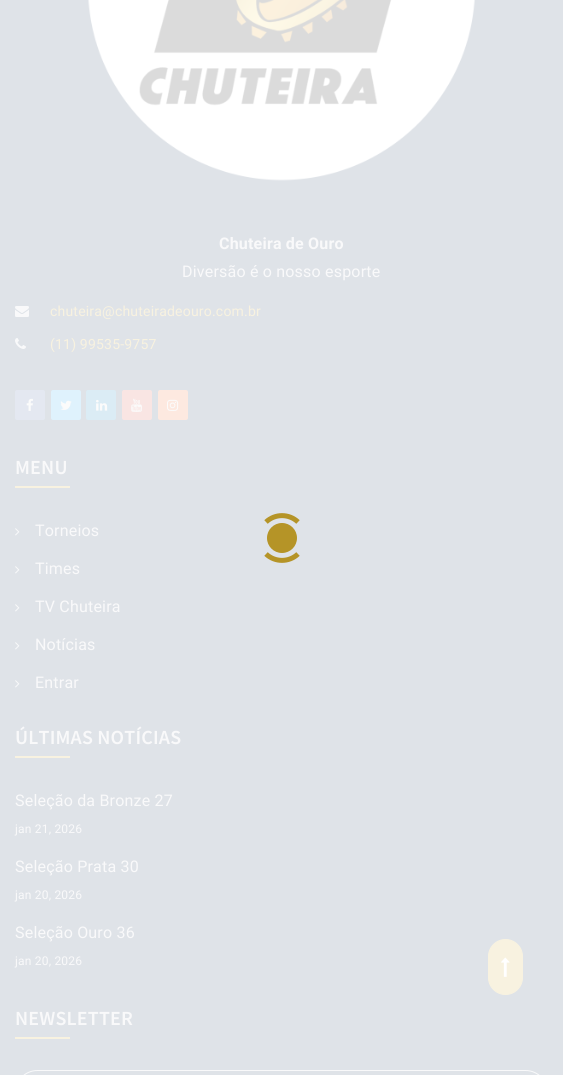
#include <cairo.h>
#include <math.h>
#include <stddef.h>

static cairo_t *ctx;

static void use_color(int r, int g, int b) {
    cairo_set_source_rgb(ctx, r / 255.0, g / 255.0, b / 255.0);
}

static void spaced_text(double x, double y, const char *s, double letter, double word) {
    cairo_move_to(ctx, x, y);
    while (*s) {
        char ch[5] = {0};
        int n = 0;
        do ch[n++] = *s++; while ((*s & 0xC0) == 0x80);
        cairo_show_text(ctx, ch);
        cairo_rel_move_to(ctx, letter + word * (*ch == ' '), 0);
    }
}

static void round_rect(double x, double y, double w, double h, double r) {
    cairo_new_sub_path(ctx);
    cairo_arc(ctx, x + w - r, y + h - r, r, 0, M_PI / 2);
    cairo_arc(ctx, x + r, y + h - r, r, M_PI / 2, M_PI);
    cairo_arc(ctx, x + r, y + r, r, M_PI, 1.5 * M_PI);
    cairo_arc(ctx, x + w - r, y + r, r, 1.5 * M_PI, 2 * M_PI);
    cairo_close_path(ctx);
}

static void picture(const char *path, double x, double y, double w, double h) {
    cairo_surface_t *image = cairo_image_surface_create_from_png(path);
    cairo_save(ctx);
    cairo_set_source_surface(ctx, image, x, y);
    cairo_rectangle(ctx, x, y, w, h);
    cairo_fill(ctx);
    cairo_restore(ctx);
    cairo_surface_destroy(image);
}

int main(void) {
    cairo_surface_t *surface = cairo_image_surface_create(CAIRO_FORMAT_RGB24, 563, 1075);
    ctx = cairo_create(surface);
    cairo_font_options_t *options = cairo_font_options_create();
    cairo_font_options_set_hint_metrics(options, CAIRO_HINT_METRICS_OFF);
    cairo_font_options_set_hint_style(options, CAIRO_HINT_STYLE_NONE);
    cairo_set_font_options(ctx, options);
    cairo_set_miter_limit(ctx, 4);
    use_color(223, 227, 232);
    cairo_paint(ctx);
    picture("img1.png", 88, 0, 387, 181);
    cairo_select_font_face(ctx, "Roboto", CAIRO_FONT_SLANT_NORMAL, CAIRO_FONT_WEIGHT_BOLD);
    cairo_set_font_size(ctx, 16);
    use_color(249, 249, 250);
    spaced_text(219, 249, "Chuteira de Ouro", 0.2, 0);
    cairo_select_font_face(ctx, "Roboto", CAIRO_FONT_SLANT_NORMAL, CAIRO_FONT_WEIGHT_NORMAL);
    spaced_text(182, 277, "Diversão é o nosso esporte", 0.2, 0);
    picture("img2.png", 15, 306, 14, 11);
    cairo_set_font_size(ctx, 14);
    use_color(248, 242, 224);
    spaced_text(50, 316, "chuteira@chuteiradeouro.com.br", 0.2, 0);
    picture("img3.png", 15, 338, 11, 11);
    spaced_text(50, 349, "(11) 99535-9757", 0.2, 0);
    use_color(228, 232, 241);
    round_rect(15, 390, 30, 30, 2);
    cairo_fill(ctx);
    picture("img4.png", 26, 398, 7, 13);
    use_color(223, 242, 253);
    round_rect(51, 390, 30, 30, 2);
    cairo_fill(ctx);
    picture("img5.png", 60, 400, 12, 10);
    use_color(219, 236, 245);
    round_rect(86, 390, 30, 30, 2);
    cairo_fill(ctx);
    picture("img6.png", 96, 399, 12, 12);
    use_color(249, 229, 227);
    round_rect(122, 390, 30, 30, 2);
    cairo_fill(ctx);
    picture("img7.png", 131, 398, 11, 14);
    use_color(253, 233, 224);
    round_rect(158, 390, 30, 30, 2);
    cairo_fill(ctx);
    picture("img8.png", 167, 399, 12, 12);
    cairo_select_font_face(ctx, "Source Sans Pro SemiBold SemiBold", CAIRO_FONT_SLANT_NORMAL, CAIRO_FONT_WEIGHT_NORMAL);
    cairo_set_font_size(ctx, 20);
    use_color(249, 249, 250);
    spaced_text(15, 474, "MENU", 0.2, 0);
    use_color(248, 242, 224);
    cairo_rectangle(ctx, 15, 486, 55, 2);
    cairo_fill(ctx);
    picture("img9.png", 15, 528, 5, 8);
    cairo_select_font_face(ctx, "Roboto", CAIRO_FONT_SLANT_NORMAL, CAIRO_FONT_WEIGHT_NORMAL);
    cairo_set_font_size(ctx, 16);
    use_color(249, 249, 250);
    spaced_text(35, 536, "Torneios", 0.2, 0);
    picture("img9.png", 15, 566, 5, 8);
    spaced_text(35, 574, "Times", 0.2, 0);
    picture("img9.png", 15, 604, 5, 8);
    spaced_text(35, 612, "TV Chuteira", 0.2, 0);
    picture("img9.png", 15, 642, 5, 8);
    spaced_text(35, 650, "Notícias", 0.2, 0);
    picture("img9.png", 15, 680, 5, 8);
    spaced_text(35, 688, "Entrar", 0.2, 0);
    cairo_select_font_face(ctx, "Source Sans Pro SemiBold SemiBold", CAIRO_FONT_SLANT_NORMAL, CAIRO_FONT_WEIGHT_NORMAL);
    cairo_set_font_size(ctx, 20);
    spaced_text(15, 744, "ÚLTIMAS NOTÍCIAS", 0.2, 0);
    use_color(248, 242, 224);
    cairo_rectangle(ctx, 15, 756, 55, 2);
    cairo_fill(ctx);
    cairo_select_font_face(ctx, "Roboto", CAIRO_FONT_SLANT_NORMAL, CAIRO_FONT_WEIGHT_NORMAL);
    cairo_set_font_size(ctx, 16);
    use_color(249, 249, 250);
    spaced_text(15, 806, "Seleção da Bronze 27", 0.2, 0);
    cairo_set_font_size(ctx, 12);
    spaced_text(15, 833, "jan 21, 2026", 0.2, 0);
    cairo_set_font_size(ctx, 16);
    spaced_text(15, 872, "Seleção Prata 30", 0.2, 0);
    cairo_set_font_size(ctx, 12);
    spaced_text(15, 899, "jan 20, 2026", 0.2, 0);
    cairo_set_font_size(ctx, 16);
    spaced_text(15, 938, "Seleção Ouro 36", 0.2, 0);
    cairo_set_font_size(ctx, 12);
    spaced_text(15, 965, "jan 20, 2026", 0.2, 0);
    cairo_select_font_face(ctx, "Source Sans Pro SemiBold SemiBold", CAIRO_FONT_SLANT_NORMAL, CAIRO_FONT_WEIGHT_NORMAL);
    cairo_set_font_size(ctx, 20);
    spaced_text(15, 1025, "NEWSLETTER", 0.2, 0);
    use_color(248, 242, 224);
    cairo_rectangle(ctx, 15, 1037, 55, 2);
    cairo_fill(ctx);
    round_rect(15.5, 1070.5, 532, 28, 22);
    use_color(249, 249, 250);
    cairo_set_line_width(ctx, 1);
    cairo_stroke(ctx);
    cairo_new_path(ctx);
    cairo_move_to(ctx, 266, 522);
    cairo_curve_to(ctx, 275, 513.5, 289, 513.5, 298, 522);
    cairo_move_to(ctx, 298, 554);
    cairo_curve_to(ctx, 289, 562.5, 275, 562.5, 266, 554);
    use_color(181, 148, 39);
    cairo_set_line_width(ctx, 5);
    cairo_stroke(ctx);
    cairo_arc(ctx, 282, 538, 15, 0, 2 * M_PI);
    cairo_fill(ctx);
    use_color(248, 242, 224);
    round_rect(488.5, 939.5, 34, 55, 17);
    cairo_fill_preserve(ctx);
    cairo_set_line_width(ctx, 1);
    cairo_stroke(ctx);
    picture("img10.png", 501, 957, 9, 20);
    cairo_surface_write_to_png(surface, "result.png");
    cairo_font_options_destroy(options);
    cairo_destroy(ctx);
    cairo_surface_destroy(surface);
    return 0;
}
